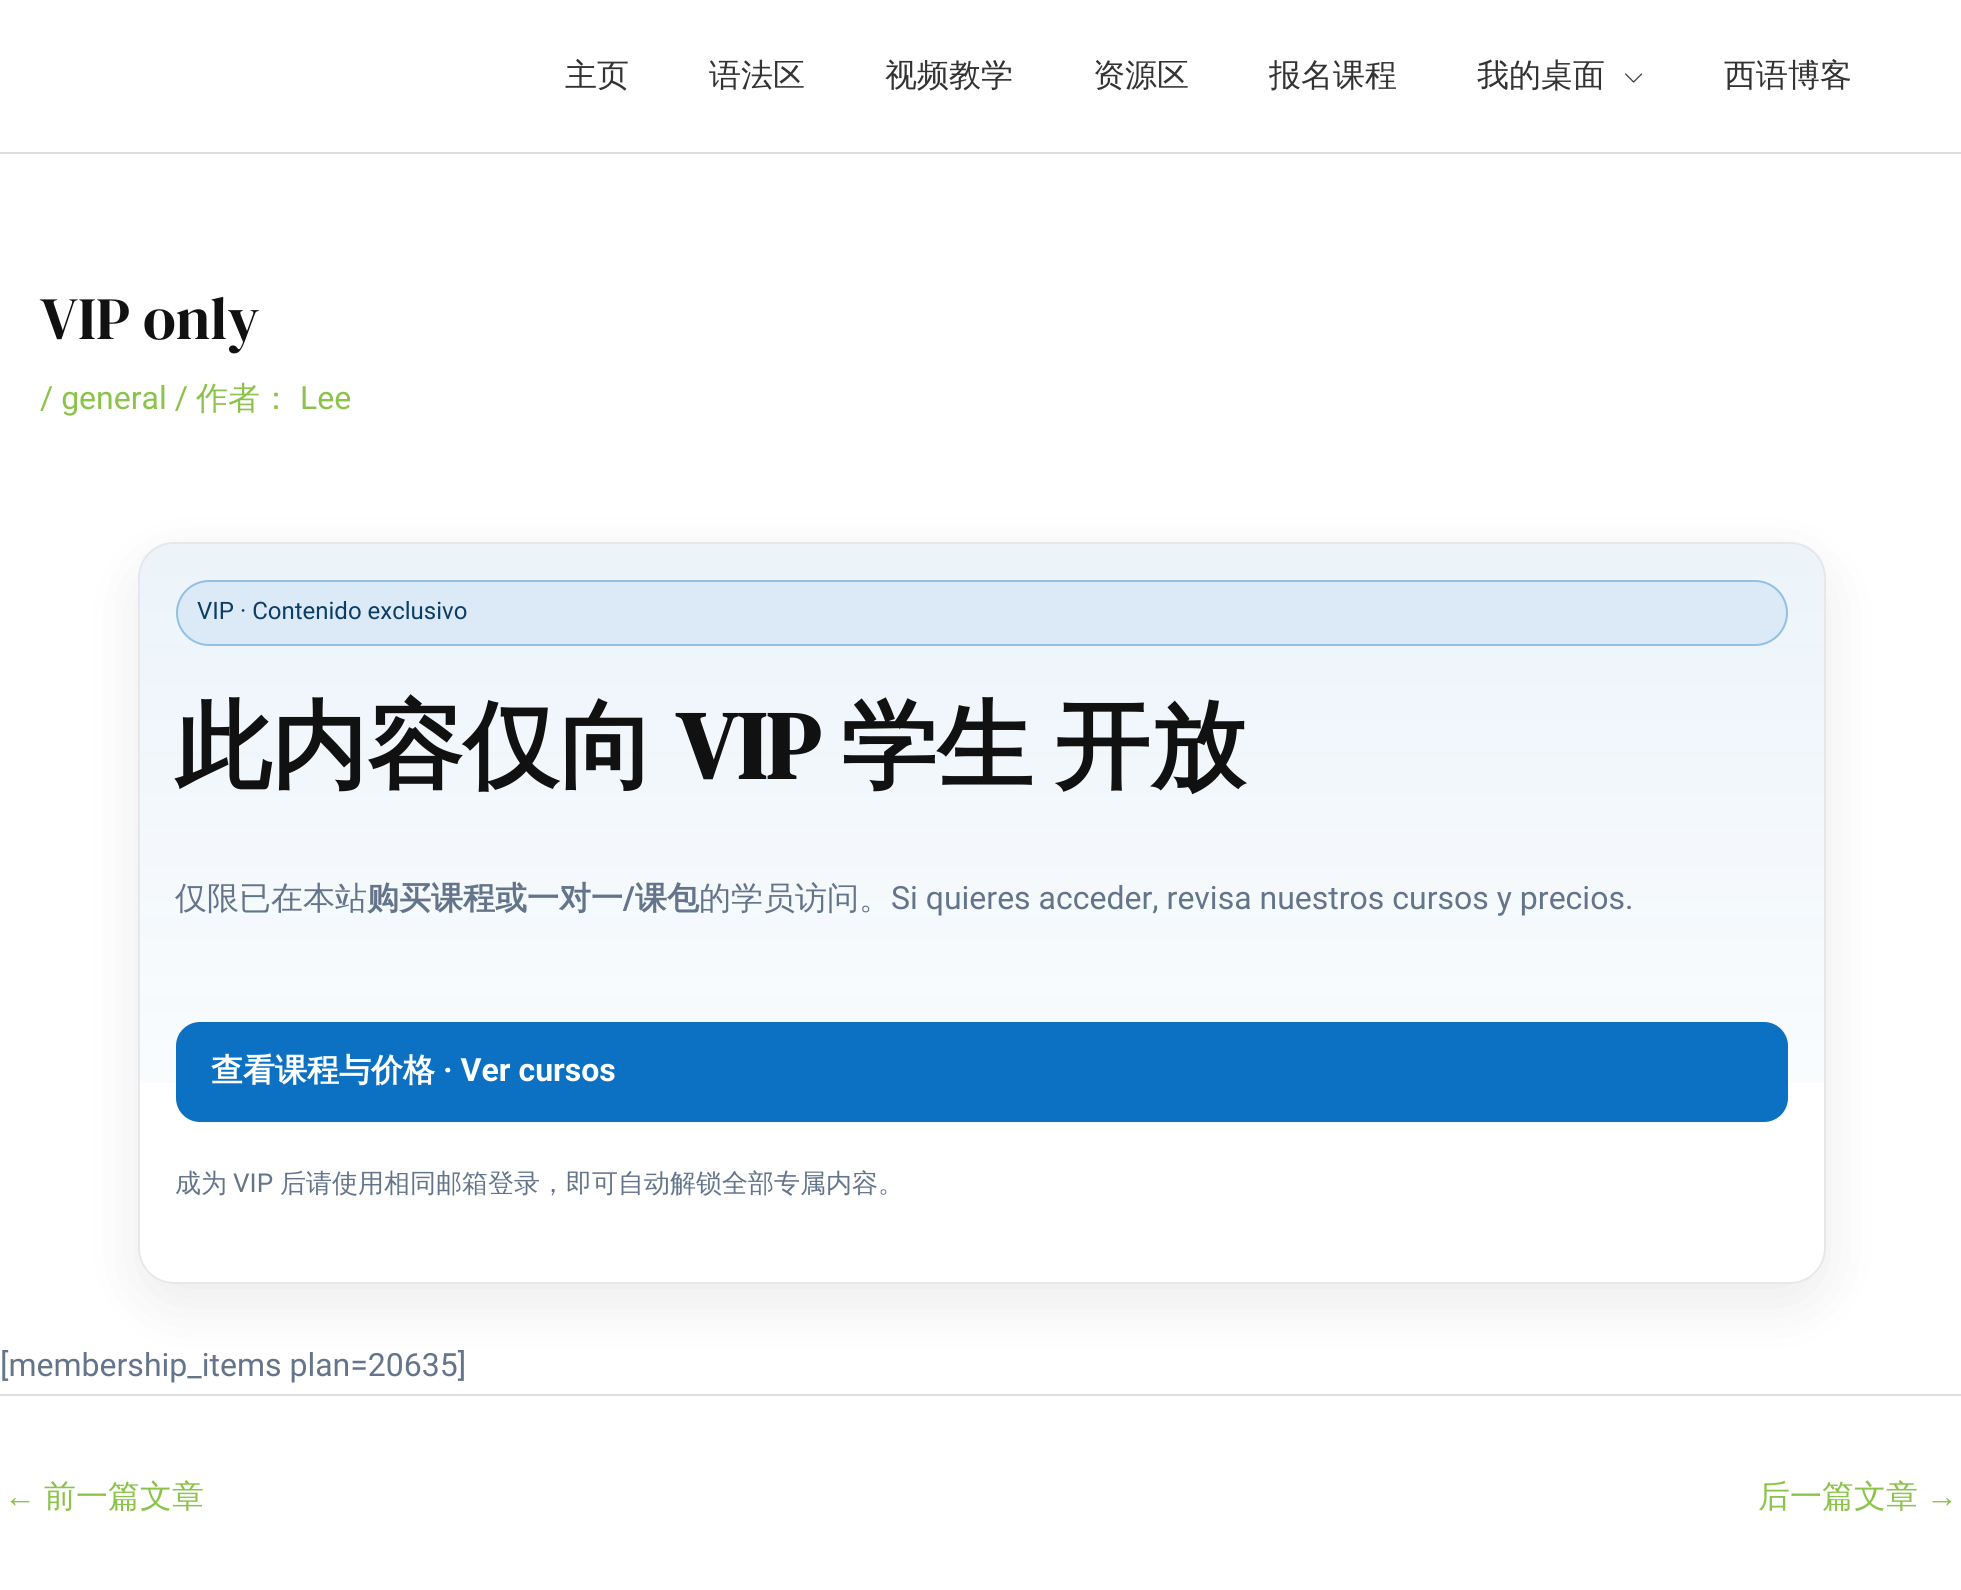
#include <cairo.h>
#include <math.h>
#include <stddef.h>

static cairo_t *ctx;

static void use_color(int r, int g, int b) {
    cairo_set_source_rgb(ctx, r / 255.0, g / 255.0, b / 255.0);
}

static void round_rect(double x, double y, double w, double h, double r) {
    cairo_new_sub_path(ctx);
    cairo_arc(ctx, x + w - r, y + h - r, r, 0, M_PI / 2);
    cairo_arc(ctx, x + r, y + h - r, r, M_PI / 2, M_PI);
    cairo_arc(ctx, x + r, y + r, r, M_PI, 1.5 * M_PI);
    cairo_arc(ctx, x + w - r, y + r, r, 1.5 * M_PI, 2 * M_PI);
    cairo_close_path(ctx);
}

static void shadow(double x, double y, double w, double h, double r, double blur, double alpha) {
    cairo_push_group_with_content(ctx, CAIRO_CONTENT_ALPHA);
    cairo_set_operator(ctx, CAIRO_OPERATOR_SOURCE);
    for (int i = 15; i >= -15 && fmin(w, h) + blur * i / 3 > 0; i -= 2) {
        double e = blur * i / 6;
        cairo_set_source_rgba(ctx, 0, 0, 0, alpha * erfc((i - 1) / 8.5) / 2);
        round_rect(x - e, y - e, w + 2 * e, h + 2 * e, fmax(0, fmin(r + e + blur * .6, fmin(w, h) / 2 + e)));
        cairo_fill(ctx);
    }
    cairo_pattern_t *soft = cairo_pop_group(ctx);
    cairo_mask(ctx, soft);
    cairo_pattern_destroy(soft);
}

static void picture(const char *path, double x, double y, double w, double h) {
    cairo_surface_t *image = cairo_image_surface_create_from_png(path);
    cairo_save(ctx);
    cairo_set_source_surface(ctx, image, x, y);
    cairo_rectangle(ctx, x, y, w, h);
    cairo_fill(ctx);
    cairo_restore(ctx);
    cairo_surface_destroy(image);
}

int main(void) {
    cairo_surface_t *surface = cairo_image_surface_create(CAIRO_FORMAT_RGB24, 1961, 1590);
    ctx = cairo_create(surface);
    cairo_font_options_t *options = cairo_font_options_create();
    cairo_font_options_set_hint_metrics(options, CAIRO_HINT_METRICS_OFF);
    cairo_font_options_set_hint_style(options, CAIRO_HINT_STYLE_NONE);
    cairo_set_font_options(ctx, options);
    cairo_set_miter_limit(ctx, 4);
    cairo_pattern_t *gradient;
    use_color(255, 255, 255);
    cairo_paint(ctx);
    use_color(221, 221, 221);
    cairo_rectangle(ctx, 0, 152, 1961, 2);
    cairo_fill(ctx);
    cairo_select_font_face(ctx, "WenQuanYi Zen Hei Medium", CAIRO_FONT_SLANT_NORMAL, CAIRO_FONT_WEIGHT_NORMAL);
    cairo_set_font_size(ctx, 32);
    use_color(51, 51, 51);
    cairo_move_to(ctx, 565, 86);
    cairo_show_text(ctx, "主页");
    cairo_move_to(ctx, 709, 86);
    cairo_show_text(ctx, "语法区");
    cairo_move_to(ctx, 885, 86);
    cairo_show_text(ctx, "视频教学");
    cairo_move_to(ctx, 1093, 86);
    cairo_show_text(ctx, "资源区");
    cairo_move_to(ctx, 1269, 86);
    cairo_show_text(ctx, "报名课程");
    cairo_move_to(ctx, 1477, 86);
    cairo_show_text(ctx, "我的桌面");
    picture("img1.png", 1625, 73, 18, 10);
    cairo_move_to(ctx, 1724, 86);
    cairo_show_text(ctx, "西语博客");
    cairo_select_font_face(ctx, "DM Serif Display", CAIRO_FONT_SLANT_NORMAL, CAIRO_FONT_WEIGHT_NORMAL);
    cairo_set_font_size(ctx, 60);
    use_color(17, 17, 17);
    cairo_move_to(ctx, 40, 339);
    cairo_show_text(ctx, "VIP only");
    cairo_select_font_face(ctx, "Roboto", CAIRO_FONT_SLANT_NORMAL, CAIRO_FONT_WEIGHT_NORMAL);
    cairo_set_font_size(ctx, 32);
    use_color(139, 195, 74);
    cairo_move_to(ctx, 40, 409);
    cairo_show_text(ctx, "/ general /");
    cairo_select_font_face(ctx, "WenQuanYi Zen Hei Medium", CAIRO_FONT_SLANT_NORMAL, CAIRO_FONT_WEIGHT_NORMAL);
    cairo_move_to(ctx, 196, 409);
    cairo_show_text(ctx, "作者：");
    cairo_select_font_face(ctx, "Roboto", CAIRO_FONT_SLANT_NORMAL, CAIRO_FONT_WEIGHT_NORMAL);
    cairo_move_to(ctx, 300, 409);
    cairo_show_text(ctx, "Lee");
    cairo_save(ctx);
    cairo_set_fill_rule(ctx, CAIRO_FILL_RULE_EVEN_ODD);
    cairo_new_path(ctx);
    cairo_move_to(ctx, 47, 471);
    cairo_line_to(ctx, 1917, 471);
    cairo_line_to(ctx, 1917, 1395);
    cairo_line_to(ctx, 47, 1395);
    cairo_close_path(ctx);
    cairo_move_to(ctx, 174, 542);
    cairo_line_to(ctx, 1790, 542);
    cairo_curve_to(ctx, 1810, 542, 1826, 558, 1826, 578);
    cairo_line_to(ctx, 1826, 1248);
    cairo_curve_to(ctx, 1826, 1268, 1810, 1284, 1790, 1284);
    cairo_line_to(ctx, 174, 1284);
    cairo_curve_to(ctx, 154, 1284, 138, 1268, 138, 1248);
    cairo_line_to(ctx, 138, 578);
    cairo_curve_to(ctx, 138, 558, 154, 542, 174, 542);
    cairo_close_path(ctx);
    cairo_clip(ctx);
    use_color(2, 8, 23);
    shadow(138, 562, 1688, 742, 36, 30, 0.08);
    cairo_restore(ctx);
    cairo_save(ctx);
    round_rect(138, 542, 1688, 742, 36);
    cairo_clip(ctx);
    gradient = cairo_pattern_create_linear(982, 544, 982, 1282);
    cairo_pattern_add_color_stop_rgba(gradient, 0, 0.047, 0.443, 0.765, 0.08);
    cairo_pattern_add_color_stop_rgba(gradient, 1, 0.047, 0.443, 0.765, 0);
    cairo_set_source(ctx, gradient);
    cairo_pattern_destroy(gradient);
    cairo_rectangle(ctx, 138, 544, 1688, 539);
    cairo_fill(ctx);
    cairo_restore(ctx);
    round_rect(139, 543, 1686, 740, 35);
    use_color(229, 231, 235);
    cairo_stroke(ctx);
    use_color(219, 234, 246);
    round_rect(177, 581, 1610, 64, 32);
    cairo_fill_preserve(ctx);
    use_color(146, 191, 228);
    cairo_stroke(ctx);
    cairo_set_font_size(ctx, 24);
    use_color(11, 61, 102);
    cairo_move_to(ctx, 197, 619);
    cairo_show_text(ctx, "VIP · Contenido exclusivo");
    cairo_select_font_face(ctx, "WenQuanYi Zen Hei", CAIRO_FONT_SLANT_NORMAL, CAIRO_FONT_WEIGHT_BOLD);
    cairo_set_font_size(ctx, 96);
    use_color(17, 17, 17);
    cairo_move_to(ctx, 175, 779);
    cairo_show_text(ctx, "此内容仅向");
    cairo_select_font_face(ctx, "DM Serif Display", CAIRO_FONT_SLANT_NORMAL, CAIRO_FONT_WEIGHT_BOLD);
    cairo_move_to(ctx, 676, 779);
    cairo_show_text(ctx, "VIP");
    cairo_select_font_face(ctx, "WenQuanYi Zen Hei", CAIRO_FONT_SLANT_NORMAL, CAIRO_FONT_WEIGHT_BOLD);
    cairo_move_to(ctx, 841, 779);
    cairo_show_text(ctx, "学生");
    cairo_move_to(ctx, 1054, 779);
    cairo_show_text(ctx, "开放");
    cairo_select_font_face(ctx, "WenQuanYi Zen Hei Medium", CAIRO_FONT_SLANT_NORMAL, CAIRO_FONT_WEIGHT_NORMAL);
    cairo_set_font_size(ctx, 32);
    use_color(100, 116, 139);
    cairo_move_to(ctx, 175, 909);
    cairo_show_text(ctx, "仅限已在本站");
    cairo_select_font_face(ctx, "WenQuanYi Zen Hei", CAIRO_FONT_SLANT_NORMAL, CAIRO_FONT_WEIGHT_BOLD);
    cairo_move_to(ctx, 367, 909);
    cairo_show_text(ctx, "购买课程或一对一");
    cairo_select_font_face(ctx, "Roboto", CAIRO_FONT_SLANT_NORMAL, CAIRO_FONT_WEIGHT_BOLD);
    cairo_move_to(ctx, 623, 909);
    cairo_show_text(ctx, "/");
    cairo_select_font_face(ctx, "WenQuanYi Zen Hei", CAIRO_FONT_SLANT_NORMAL, CAIRO_FONT_WEIGHT_BOLD);
    cairo_move_to(ctx, 635, 909);
    cairo_show_text(ctx, "课包");
    cairo_select_font_face(ctx, "WenQuanYi Zen Hei Medium", CAIRO_FONT_SLANT_NORMAL, CAIRO_FONT_WEIGHT_NORMAL);
    cairo_move_to(ctx, 699, 909);
    cairo_show_text(ctx, "的学员访问。");
    cairo_select_font_face(ctx, "Roboto", CAIRO_FONT_SLANT_NORMAL, CAIRO_FONT_WEIGHT_NORMAL);
    cairo_move_to(ctx, 891, 909);
    cairo_show_text(ctx, "Si quieres acceder, revisa nuestros cursos y precios.");
    use_color(12, 113, 195);
    round_rect(176, 1022, 1612, 100, 24);
    cairo_fill(ctx);
    cairo_select_font_face(ctx, "WenQuanYi Zen Hei", CAIRO_FONT_SLANT_NORMAL, CAIRO_FONT_WEIGHT_BOLD);
    use_color(255, 255, 255);
    cairo_move_to(ctx, 211, 1081);
    cairo_show_text(ctx, "查看课程与价格");
    cairo_select_font_face(ctx, "Roboto", CAIRO_FONT_SLANT_NORMAL, CAIRO_FONT_WEIGHT_BOLD);
    cairo_move_to(ctx, 443, 1081);
    cairo_show_text(ctx, "· Ver cursos");
    cairo_select_font_face(ctx, "WenQuanYi Zen Hei Medium", CAIRO_FONT_SLANT_NORMAL, CAIRO_FONT_WEIGHT_NORMAL);
    cairo_set_font_size(ctx, 26);
    use_color(100, 116, 139);
    cairo_move_to(ctx, 175, 1192);
    cairo_show_text(ctx, "成为");
    cairo_select_font_face(ctx, "Roboto", CAIRO_FONT_SLANT_NORMAL, CAIRO_FONT_WEIGHT_NORMAL);
    cairo_move_to(ctx, 233, 1192);
    cairo_show_text(ctx, "VIP");
    cairo_select_font_face(ctx, "WenQuanYi Zen Hei Medium", CAIRO_FONT_SLANT_NORMAL, CAIRO_FONT_WEIGHT_NORMAL);
    cairo_move_to(ctx, 280, 1192);
    cairo_show_text(ctx, "后请使用相同邮箱登录，即可自动解锁全部专属内容。");
    cairo_select_font_face(ctx, "Roboto", CAIRO_FONT_SLANT_NORMAL, CAIRO_FONT_WEIGHT_NORMAL);
    cairo_set_font_size(ctx, 32);
    cairo_move_to(ctx, 0, 1376);
    cairo_show_text(ctx, "[membership_items plan=20635]");
    use_color(221, 221, 221);
    cairo_rectangle(ctx, 0, 1394, 1961, 2);
    cairo_fill(ctx);
    cairo_select_font_face(ctx, "Liberation Sans", CAIRO_FONT_SLANT_NORMAL, CAIRO_FONT_WEIGHT_NORMAL);
    use_color(139, 195, 74);
    cairo_move_to(ctx, 4, 1507);
    cairo_show_text(ctx, "←");
    cairo_select_font_face(ctx, "WenQuanYi Zen Hei Medium", CAIRO_FONT_SLANT_NORMAL, CAIRO_FONT_WEIGHT_NORMAL);
    cairo_move_to(ctx, 44, 1507);
    cairo_show_text(ctx, "前一篇文章");
    cairo_move_to(ctx, 1758, 1507);
    cairo_show_text(ctx, "后一篇文章");
    cairo_select_font_face(ctx, "Liberation Sans", CAIRO_FONT_SLANT_NORMAL, CAIRO_FONT_WEIGHT_NORMAL);
    cairo_move_to(ctx, 1926, 1507);
    cairo_show_text(ctx, "→");
    cairo_surface_write_to_png(surface, "result.png");
    cairo_font_options_destroy(options);
    cairo_destroy(ctx);
    cairo_surface_destroy(surface);
    return 0;
}
